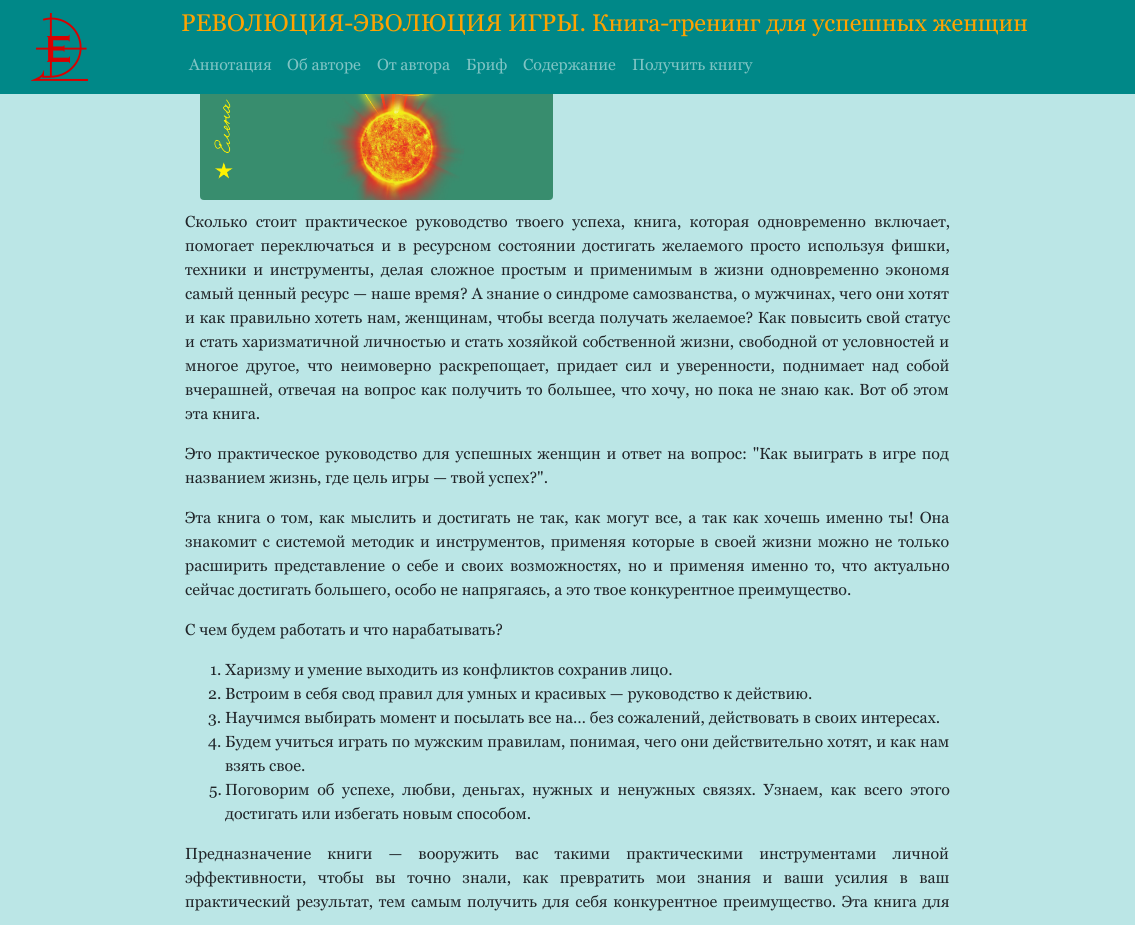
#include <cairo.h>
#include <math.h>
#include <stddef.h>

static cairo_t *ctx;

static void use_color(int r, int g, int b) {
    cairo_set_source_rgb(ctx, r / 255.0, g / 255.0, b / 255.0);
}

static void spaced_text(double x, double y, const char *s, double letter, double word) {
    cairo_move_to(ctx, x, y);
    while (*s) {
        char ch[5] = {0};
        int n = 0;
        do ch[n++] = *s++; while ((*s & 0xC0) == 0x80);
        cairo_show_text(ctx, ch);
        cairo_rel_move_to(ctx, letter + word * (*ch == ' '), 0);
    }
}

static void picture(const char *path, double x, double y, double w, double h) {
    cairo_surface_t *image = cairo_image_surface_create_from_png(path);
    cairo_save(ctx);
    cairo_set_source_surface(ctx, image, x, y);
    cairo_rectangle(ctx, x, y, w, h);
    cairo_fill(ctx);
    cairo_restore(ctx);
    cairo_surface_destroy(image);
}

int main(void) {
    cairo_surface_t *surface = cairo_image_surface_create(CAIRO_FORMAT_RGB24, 1135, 925);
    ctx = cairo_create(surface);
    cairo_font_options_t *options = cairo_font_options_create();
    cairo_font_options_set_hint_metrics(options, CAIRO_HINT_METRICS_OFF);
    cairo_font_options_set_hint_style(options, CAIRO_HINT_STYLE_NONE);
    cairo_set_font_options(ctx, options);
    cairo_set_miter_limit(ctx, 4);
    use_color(187, 230, 230);
    cairo_paint(ctx);
    use_color(0, 136, 136);
    cairo_rectangle(ctx, 0, 0, 1135, 94);
    cairo_fill(ctx);
    picture("img1.png", 31, 13, 57, 68);
    cairo_select_font_face(ctx, "Georgia", CAIRO_FONT_SLANT_NORMAL, CAIRO_FONT_WEIGHT_NORMAL);
    cairo_set_font_size(ctx, 24);
    use_color(255, 162, 0);
    cairo_move_to(ctx, 181, 31);
    cairo_show_text(ctx, "РЕВОЛЮЦИЯ-ЭВОЛЮЦИЯ ИГРЫ. Книга-тренинг для успешных женщин");
    cairo_set_font_size(ctx, 16);
    use_color(128, 196, 196);
    cairo_move_to(ctx, 189, 70);
    cairo_show_text(ctx, "Аннотация");
    cairo_move_to(ctx, 287, 70);
    cairo_show_text(ctx, "Об авторе");
    cairo_move_to(ctx, 377, 70);
    cairo_show_text(ctx, "От автора");
    cairo_move_to(ctx, 466, 70);
    cairo_show_text(ctx, "Бриф");
    cairo_move_to(ctx, 523, 70);
    cairo_show_text(ctx, "Содержание");
    cairo_move_to(ctx, 632, 70);
    cairo_show_text(ctx, "Получить книгу");
    picture("img2.png", 200, 94, 353, 106);
    use_color(33, 37, 41);
    spaced_text(185, 227, "Сколько стоит практическое руководство твоего успеха, книга, которая одновременно включает,", 0, 4.5);
    spaced_text(185, 251, "помогает переключаться и в ресурсном состоянии достигать желаемого просто используя фишки,", 0, 3);
    spaced_text(185, 275, "техники и инструменты, делая сложное простым и применимым в жизни одновременно экономя", 0, 2.9);
    spaced_text(185, 299, "самый ценный ресурс — наше время? А знание о синдроме самозванства, о мужчинах, чего они хотят", 0, 0.25);
    spaced_text(185, 323, "и как правильно хотеть нам, женщинам, чтобы всегда получать желаемое? Как повысить свой статус", 0, 0.75);
    spaced_text(185, 347, "и стать харизматичной личностью и стать хозяйкой собственной жизни, свободной от условностей и", 0, 0.75);
    spaced_text(185, 371, "многое другое, что неимоверно раскрепощает, придает сил и уверенности, поднимает над собой", 0, 3.9);
    spaced_text(185, 395, "вчерашней, отвечая на вопрос как получить то большее, что хочу, но пока не знаю как. Вот об этом", 0, 1.25);
    cairo_move_to(ctx, 185, 419);
    cairo_show_text(ctx, "эта книга.");
    spaced_text(185, 459, "Это практическое руководство для успешных женщин и ответ на вопрос: \"Как выиграть в игре под", 0, 1.75);
    cairo_move_to(ctx, 185, 483);
    cairo_show_text(ctx, "названием жизнь, где цель игры — твой успех?\".");
    spaced_text(185, 523, "Эта книга о том, как мыслить и достигать не так, как могут все, а так как хочешь именно ты! Она", 0, 2.1);
    spaced_text(185, 547, "знакомит с системой методик и инструментов, применяя которые в своей жизни можно не только", 0, 2.1);
    spaced_text(185, 571, "расширить представление о себе и своих возможностях, но и применяя именно то, что актуально", 0, 2.75);
    cairo_move_to(ctx, 185, 595);
    cairo_show_text(ctx, "сейчас достигать большего, особо не напрягаясь, а это твое конкурентное преимущество.");
    cairo_move_to(ctx, 185, 635);
    cairo_show_text(ctx, "С чем будем работать и что нарабатывать?");
    cairo_move_to(ctx, 210, 675);
    cairo_show_text(ctx, "1. Харизму и умение выходить из конфликтов сохранив лицо.");
    cairo_move_to(ctx, 208, 699);
    cairo_show_text(ctx, "2. Встроим в себя свод правил для умных и красивых — руководство к действию.");
    cairo_move_to(ctx, 208, 723);
    cairo_show_text(ctx, "3. Научимся выбирать момент и посылать все на… без сожалений, действовать в своих интересах.");
    cairo_move_to(ctx, 208, 747);
    cairo_show_text(ctx, "4.");
    spaced_text(225, 747, "Будем учиться играть по мужским правилам, понимая, чего они действительно хотят, и как нам", 0, 0.25);
    cairo_move_to(ctx, 225, 771);
    cairo_show_text(ctx, "взять свое.");
    cairo_move_to(ctx, 209, 795);
    cairo_show_text(ctx, "5.");
    spaced_text(225, 795, "Поговорим об успехе, любви, деньгах, нужных и ненужных связях. Узнаем, как всего этого", 0, 3.75);
    cairo_move_to(ctx, 225, 819);
    cairo_show_text(ctx, "достигать или избегать новым способом.");
    spaced_text(185, 859, "Предназначение книги — вооружить вас такими практическими инструментами личной", 0, 12.25);
    spaced_text(185, 883, "эффективности, чтобы вы точно знали, как превратить мои знания и ваши усилия в ваш", 0, 7.6);
    spaced_text(185, 907, "практический результат, тем самым получить для себя конкурентное преимущество. Эта книга для", 0, 1.75);
    cairo_surface_write_to_png(surface, "result.png");
    cairo_font_options_destroy(options);
    cairo_destroy(ctx);
    cairo_surface_destroy(surface);
    return 0;
}
